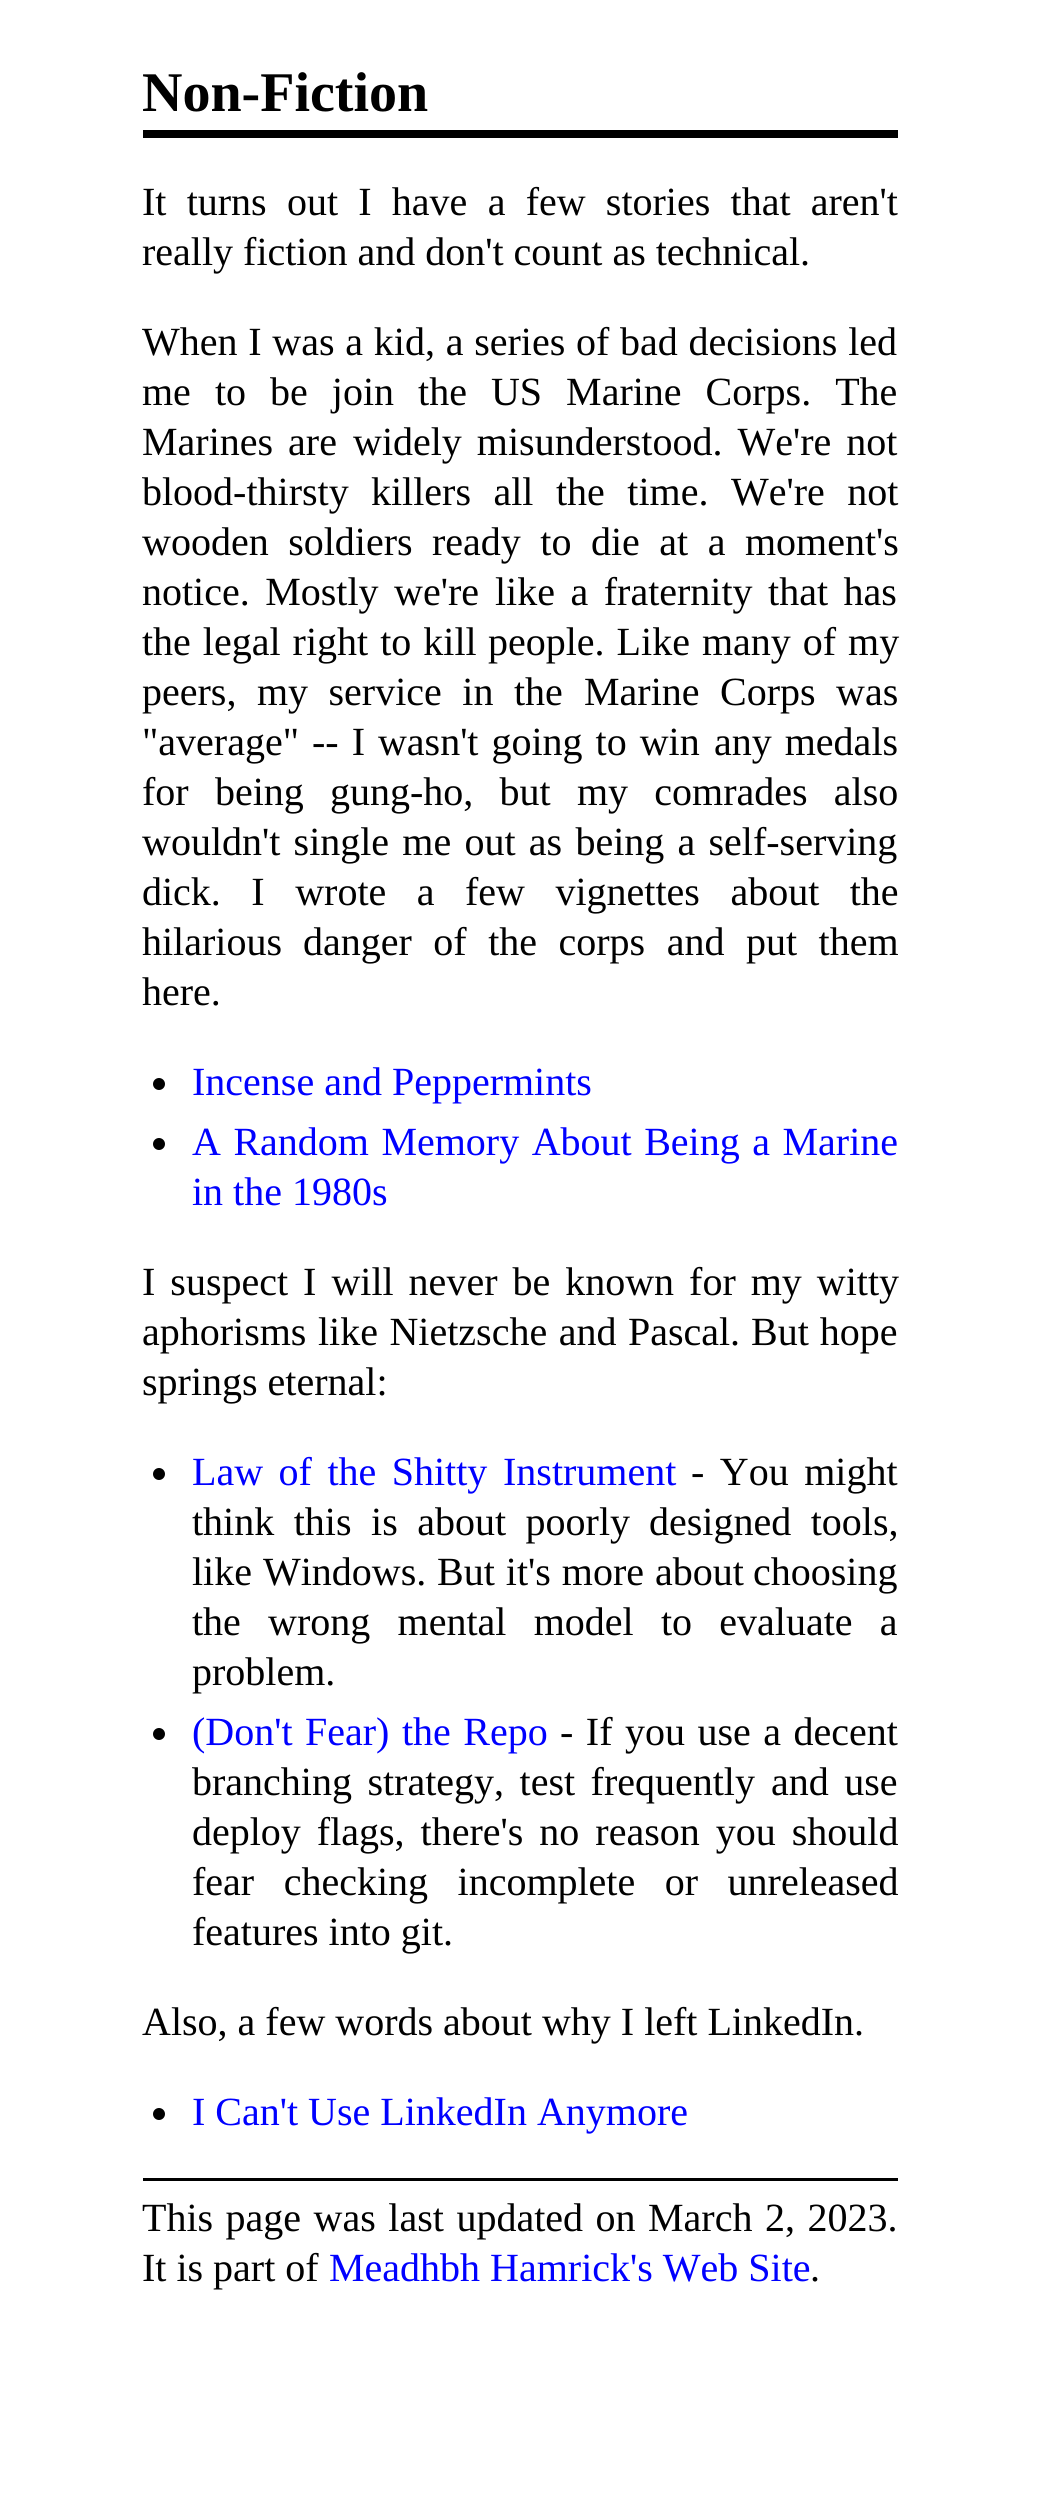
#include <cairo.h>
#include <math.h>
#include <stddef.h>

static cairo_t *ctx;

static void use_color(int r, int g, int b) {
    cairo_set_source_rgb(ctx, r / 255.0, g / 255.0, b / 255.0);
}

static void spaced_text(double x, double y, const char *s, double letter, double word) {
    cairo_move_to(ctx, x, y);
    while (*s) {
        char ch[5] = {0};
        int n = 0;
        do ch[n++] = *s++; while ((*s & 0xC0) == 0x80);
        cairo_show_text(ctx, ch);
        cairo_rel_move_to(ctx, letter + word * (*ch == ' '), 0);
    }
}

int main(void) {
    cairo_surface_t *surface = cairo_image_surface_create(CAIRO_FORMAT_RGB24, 1040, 2513);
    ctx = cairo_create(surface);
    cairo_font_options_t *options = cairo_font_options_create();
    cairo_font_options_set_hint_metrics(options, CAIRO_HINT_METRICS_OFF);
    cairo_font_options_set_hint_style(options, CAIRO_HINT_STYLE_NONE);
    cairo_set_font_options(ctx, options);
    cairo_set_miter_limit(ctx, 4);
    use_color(255, 255, 255);
    cairo_paint(ctx);
    use_color(0, 0, 0);
    cairo_rectangle(ctx, 143, 130, 755, 8);
    cairo_fill(ctx);
    cairo_select_font_face(ctx, "Liberation Serif", CAIRO_FONT_SLANT_NORMAL, CAIRO_FONT_WEIGHT_BOLD);
    cairo_set_font_size(ctx, 56);
    cairo_move_to(ctx, 142, 111);
    cairo_show_text(ctx, "Non-Fiction");
    cairo_select_font_face(ctx, "Liberation Serif", CAIRO_FONT_SLANT_NORMAL, CAIRO_FONT_WEIGHT_NORMAL);
    cairo_set_font_size(ctx, 40);
    spaced_text(142, 215, "It turns out I have a few stories that aren't", 0, 10.25);
    cairo_move_to(ctx, 142, 265);
    cairo_show_text(ctx, "really fiction and don't count as technical.");
    spaced_text(142, 355, "When I was a kid, a series of bad decisions led", 0, 0.75);
    cairo_move_to(ctx, 142, 405);
    cairo_show_text(ctx, "me");
    spaced_text(215, 405, "to be join the US Marine Corps. The", 0, 14);
    spaced_text(142, 455, "Marines are", 0, 5);
    spaced_text(353, 455, "widely misunderstood. We're not", 0, 5);
    cairo_move_to(ctx, 142, 505);
    cairo_show_text(ctx, "blood-thirsty");
    spaced_text(371, 505, "killers all the time. We're not", 0, 12.5);
    spaced_text(142, 555, "wooden soldiers", 0, 9.5);
    spaced_text(432, 555, "ready to die at a moment's", 0, 9.5);
    spaced_text(142, 605, "notice. Mostly we're", 0, 5.5);
    spaced_text(495, 605, "like a fraternity that has", 0, 5.5);
    spaced_text(142, 655, "the legal right to kill", 0, 2);
    spaced_text(488, 655, "people. Like many of my", 0, 2);
    spaced_text(142, 705, "peers, my service in the", 0, 10.5);
    spaced_text(584, 705, "Marine Corps was", 0, 10.5);
    spaced_text(142, 755, "\"average\" -- I wasn't going to win", 0, 3);
    spaced_text(714, 755, "any medals", 0, 3);
    spaced_text(142, 805, "for being gung-ho, but my comrades also", 0, 16.25);
    spaced_text(142, 855, "wouldn't single me out as being a self-serving", 0, 3.25);
    spaced_text(142, 905, "dick. I wrote a few vignettes about the", 0, 20.5);
    cairo_move_to(ctx, 142, 955);
    cairo_show_text(ctx, "hilarious");
    spaced_text(303, 955, "danger of the corps and put them", 0, 11.5);
    cairo_move_to(ctx, 142, 1005);
    cairo_show_text(ctx, "here.");
    cairo_new_path(ctx);
    cairo_arc(ctx, 159, 1084, 6, 0, 2 * M_PI);
    cairo_fill(ctx);
    use_color(0, 0, 255);
    cairo_move_to(ctx, 192, 1095);
    cairo_show_text(ctx, "Incense and Peppermints");
    use_color(0, 0, 0);
    cairo_new_path(ctx);
    cairo_arc(ctx, 159, 1144, 6, 0, 2 * M_PI);
    cairo_fill(ctx);
    use_color(0, 0, 255);
    spaced_text(192, 1155, "A Random Memory About Being a Marine", 0, 2.5);
    cairo_move_to(ctx, 192, 1205);
    cairo_show_text(ctx, "in the 1980s");
    use_color(0, 0, 0);
    spaced_text(142, 1295, "I suspect I will never be known for my witty", 0, 5);
    cairo_move_to(ctx, 142, 1345);
    cairo_show_text(ctx, "aphorisms");
    spaced_text(318, 1345, "like Nietzsche and Pascal.", 0, 1.5);
    spaced_text(751, 1345, "But hope", 0, 1);
    cairo_move_to(ctx, 142, 1395);
    cairo_show_text(ctx, "springs eternal:");
    cairo_new_path(ctx);
    cairo_arc(ctx, 159, 1474, 6, 0, 2 * M_PI);
    cairo_fill(ctx);
    use_color(0, 0, 255);
    spaced_text(192, 1485, "Law of the Shitty", 0, 5.5);
    cairo_move_to(ctx, 503, 1485);
    cairo_show_text(ctx, "Instrument");
    use_color(0, 0, 0);
    spaced_text(691, 1485, "- You might", 0, 5.5);
    spaced_text(192, 1535, "think this is about poorly", 0, 9.5);
    spaced_text(649, 1535, "designed tools,", 0, 9.5);
    spaced_text(192, 1585, "like Windows.", 0, 1);
    spaced_text(437, 1585, "But it's more about", 0, 1);
    cairo_move_to(ctx, 753, 1585);
    cairo_show_text(ctx, "choosing");
    spaced_text(192, 1635, "the wrong mental model to evaluate a", 0, 17.25);
    cairo_move_to(ctx, 192, 1685);
    cairo_show_text(ctx, "problem.");
    cairo_new_path(ctx);
    cairo_arc(ctx, 159, 1734, 6, 0, 2 * M_PI);
    cairo_fill(ctx);
    use_color(0, 0, 255);
    spaced_text(192, 1745, "(Don't Fear) the Repo", 0, 2.5);
    use_color(0, 0, 0);
    spaced_text(560, 1745, "- If", 0, 2.5);
    spaced_text(625, 1745, "you use a decent", 0, 2.5);
    spaced_text(192, 1795, "branching strategy, test frequently", 0, 5.5);
    spaced_text(771, 1795, "and use", 0, 5.5);
    spaced_text(192, 1845, "deploy flags, there's no reason you should", 0, 6);
    spaced_text(192, 1895, "fear checking incomplete or unreleased", 0, 19.5);
    cairo_move_to(ctx, 192, 1945);
    cairo_show_text(ctx, "features into git.");
    cairo_move_to(ctx, 142, 2035);
    cairo_show_text(ctx, "Also, a few words about why I left LinkedIn.");
    cairo_new_path(ctx);
    cairo_arc(ctx, 159, 2114, 6, 0, 2 * M_PI);
    cairo_fill(ctx);
    use_color(0, 0, 255);
    cairo_move_to(ctx, 192, 2125);
    cairo_show_text(ctx, "I Can't Use LinkedIn Anymore");
    use_color(0, 0, 0);
    cairo_rectangle(ctx, 143, 2178, 755, 3);
    cairo_fill(ctx);
    spaced_text(142, 2231, "This page was last updated on March 2, 2023.", 0, 2.5);
    cairo_move_to(ctx, 142, 2281);
    cairo_show_text(ctx, "It is part of");
    use_color(0, 0, 255);
    cairo_move_to(ctx, 329, 2281);
    cairo_show_text(ctx, "Meadhbh Hamrick's Web Site");
    use_color(0, 0, 0);
    cairo_move_to(ctx, 810, 2281);
    cairo_show_text(ctx, ".");
    cairo_surface_write_to_png(surface, "result.png");
    cairo_font_options_destroy(options);
    cairo_destroy(ctx);
    cairo_surface_destroy(surface);
    return 0;
}
